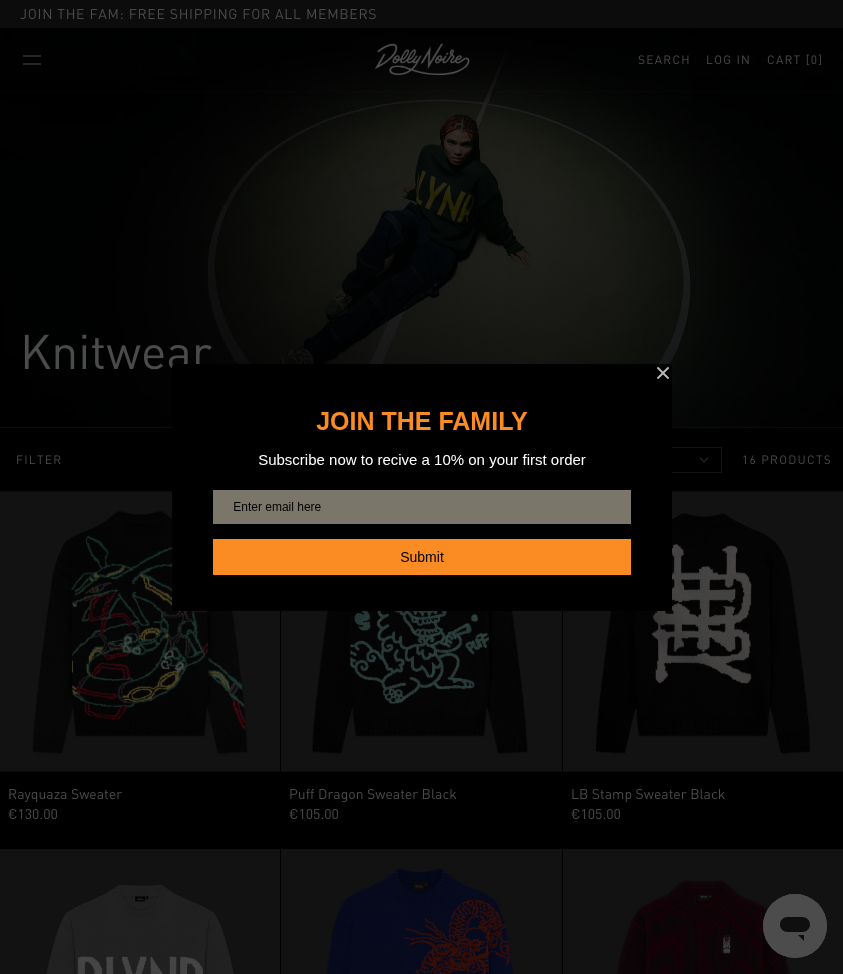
#include <cairo.h>
#include <math.h>
#include <stddef.h>

static cairo_t *ctx;

static void use_color(int r, int g, int b) {
    cairo_set_source_rgb(ctx, r / 255.0, g / 255.0, b / 255.0);
}

static void spaced_text(double x, double y, const char *s, double letter, double word) {
    cairo_move_to(ctx, x, y);
    while (*s) {
        char ch[5] = {0};
        int n = 0;
        do ch[n++] = *s++; while ((*s & 0xC0) == 0x80);
        cairo_show_text(ctx, ch);
        cairo_rel_move_to(ctx, letter + word * (*ch == ' '), 0);
    }
}

static void picture(const char *path, double x, double y, double w, double h) {
    cairo_surface_t *image = cairo_image_surface_create_from_png(path);
    cairo_save(ctx);
    cairo_set_source_surface(ctx, image, x, y);
    cairo_rectangle(ctx, x, y, w, h);
    cairo_fill(ctx);
    cairo_restore(ctx);
    cairo_surface_destroy(image);
}

int main(void) {
    cairo_surface_t *surface = cairo_image_surface_create(CAIRO_FORMAT_RGB24, 843, 974);
    ctx = cairo_create(surface);
    cairo_font_options_t *options = cairo_font_options_create();
    cairo_font_options_set_hint_metrics(options, CAIRO_HINT_METRICS_OFF);
    cairo_font_options_set_hint_style(options, CAIRO_HINT_STYLE_NONE);
    cairo_set_font_options(ctx, options);
    cairo_set_miter_limit(ctx, 4);
    use_color(0, 0, 0);
    cairo_paint(ctx);
    use_color(12, 12, 13);
    cairo_rectangle(ctx, 0, 0, 843, 28);
    cairo_fill(ctx);
    cairo_select_font_face(ctx, "DIN", CAIRO_FONT_SLANT_NORMAL, CAIRO_FONT_WEIGHT_NORMAL);
    cairo_set_font_size(ctx, 14);
    use_color(75, 75, 75);
    spaced_text(20, 19, "JOIN THE FAM: FREE SHIPPING FOR ALL MEMBERS", 0.7, 0);
    picture("img2.png", 0, 28, 843, 399);
    cairo_set_source_rgba(ctx, 0.302, 0.302, 0.302, 0.05);
    cairo_rectangle(ctx, 0, 91, 843, 1);
    cairo_fill(ctx);
    cairo_new_path(ctx);
    cairo_move_to(ctx, 23, 56);
    cairo_line_to(ctx, 41, 56);
    cairo_move_to(ctx, 23, 64);
    cairo_line_to(ctx, 41, 64);
    use_color(75, 75, 75);
    cairo_set_line_width(ctx, 1);
    cairo_stroke(ctx);
    picture("img1.png", 374, 43, 96, 33);
    cairo_set_font_size(ctx, 12);
    spaced_text(638, 64, "SEARCH", 1.25, 0);
    spaced_text(706, 64, "LOG IN", 1.25, 0);
    spaced_text(767, 64, "CART [0]", 1.25, 0);
    use_color(12, 12, 13);
    cairo_rectangle(ctx, 0, 427, 843, 1);
    cairo_fill(ctx);
    cairo_set_font_size(ctx, 48);
    use_color(75, 75, 75);
    cairo_move_to(ctx, 20, 369);
    cairo_show_text(ctx, "Knitwear");
    use_color(12, 12, 13);
    cairo_rectangle(ctx, 0, 491, 843, 1);
    cairo_fill(ctx);
    cairo_set_font_size(ctx, 12);
    use_color(75, 75, 75);
    spaced_text(16, 464, "FILTER", 1.25, 0);
    cairo_new_path(ctx);
    cairo_move_to(ctx, 700.5, 458);
    cairo_line_to(ctx, 704, 462);
    cairo_line_to(ctx, 707.5, 458);
    use_color(32, 34, 38);
    cairo_set_line_width(ctx, 1.4);
    cairo_set_line_cap(ctx, CAIRO_LINE_CAP_ROUND);
    cairo_set_line_join(ctx, CAIRO_LINE_JOIN_ROUND);
    cairo_stroke(ctx);
    cairo_rectangle(ctx, 536.5, 447.5, 185, 25);
    use_color(19, 19, 21);
    cairo_set_line_width(ctx, 1);
    cairo_set_line_cap(ctx, CAIRO_LINE_CAP_BUTT);
    cairo_set_line_join(ctx, CAIRO_LINE_JOIN_MITER);
    cairo_stroke(ctx);
    use_color(75, 75, 75);
    spaced_text(742, 464, "16 PRODUCTS", 1.25, 0);
    picture("img3.png", 0, 492, 280, 279);
    use_color(12, 12, 13);
    cairo_rectangle(ctx, 0, 771, 280, 1);
    cairo_fill(ctx);
    cairo_set_font_size(ctx, 14);
    use_color(75, 75, 75);
    cairo_move_to(ctx, 8, 799);
    cairo_show_text(ctx, "Rayquaza Sweater");
    cairo_move_to(ctx, 8, 819);
    cairo_show_text(ctx, "€130.00");
    picture("img4.png", 281, 611, 281, 160);
    use_color(12, 12, 13);
    cairo_rectangle(ctx, 281, 771, 281, 1);
    cairo_fill(ctx);
    use_color(75, 75, 75);
    cairo_move_to(ctx, 289, 799);
    cairo_show_text(ctx, "Puff Dragon Sweater Black");
    cairo_move_to(ctx, 289, 819);
    cairo_show_text(ctx, "€105.00");
    picture("img5.png", 563, 492, 280, 279);
    use_color(12, 12, 13);
    cairo_rectangle(ctx, 563, 771, 280, 1);
    cairo_fill(ctx);
    use_color(75, 75, 75);
    cairo_move_to(ctx, 571, 799);
    cairo_show_text(ctx, "LB Stamp Sweater Black");
    cairo_move_to(ctx, 571, 819);
    cairo_show_text(ctx, "€105.00");
    picture("img6.png", 0, 849, 280, 125);
    picture("img7.png", 281, 849, 281, 125);
    picture("img8.png", 563, 849, 280, 125);
    picture("img9.png", 172, 364, 500, 247);
    picture("img10.png", 763, 894, 64, 64);
    cairo_surface_write_to_png(surface, "result.png");
    cairo_font_options_destroy(options);
    cairo_destroy(ctx);
    cairo_surface_destroy(surface);
    return 0;
}
